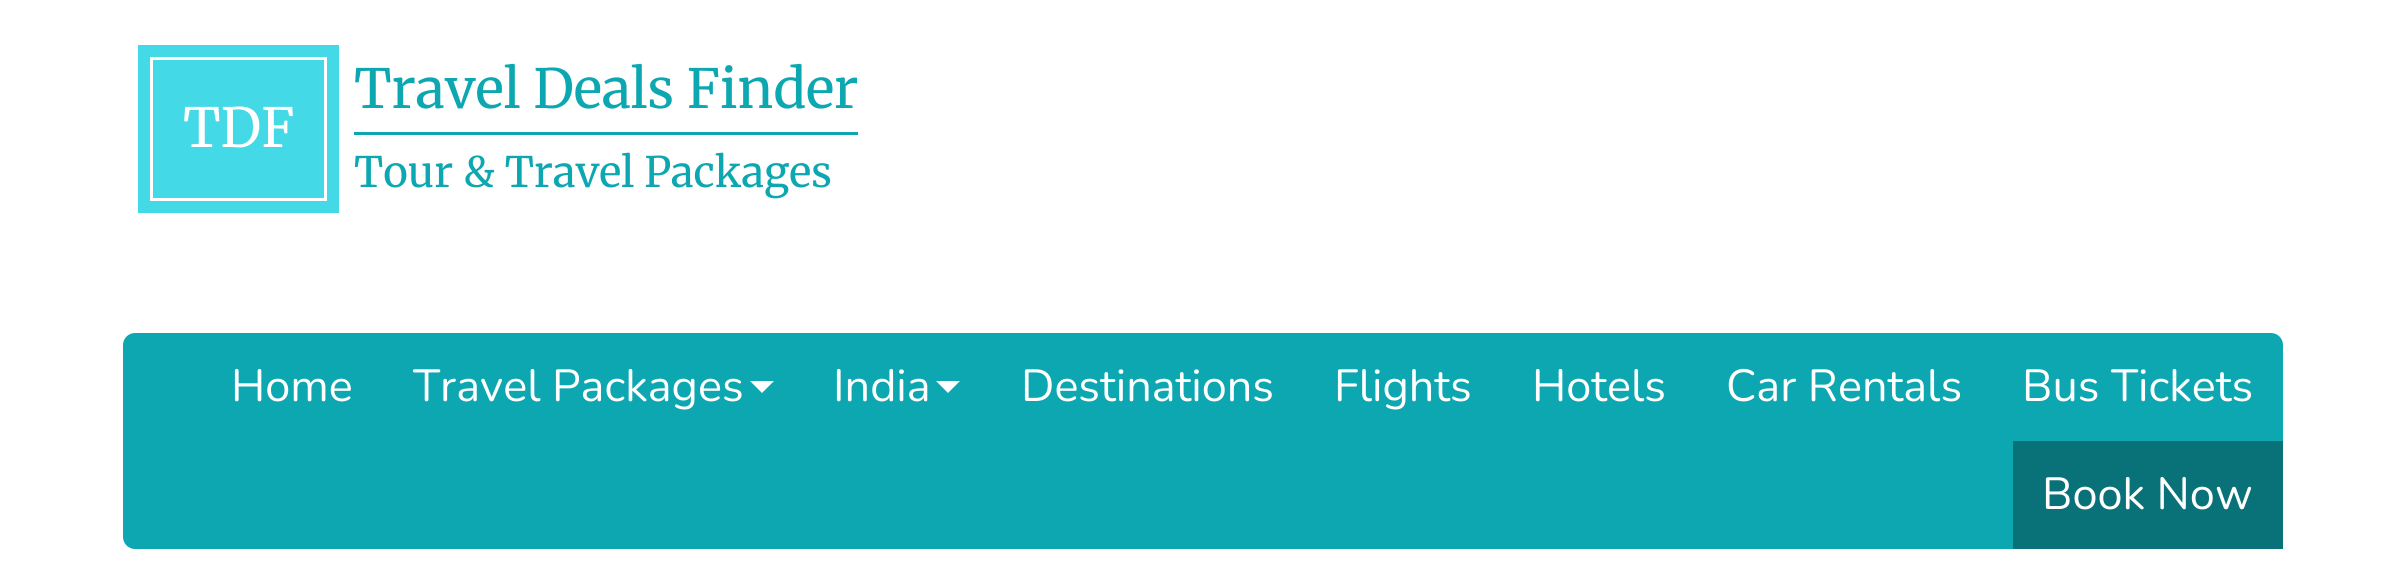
#include <cairo.h>
#include <math.h>
#include <stddef.h>

static cairo_t *ctx;

static void use_color(int r, int g, int b) {
    cairo_set_source_rgb(ctx, r / 255.0, g / 255.0, b / 255.0);
}

static void round_rect(double x, double y, double w, double h, double r) {
    cairo_new_sub_path(ctx);
    cairo_arc(ctx, x + w - r, y + h - r, r, 0, M_PI / 2);
    cairo_arc(ctx, x + r, y + h - r, r, M_PI / 2, M_PI);
    cairo_arc(ctx, x + r, y + r, r, M_PI, 1.5 * M_PI);
    cairo_arc(ctx, x + w - r, y + r, r, 1.5 * M_PI, 2 * M_PI);
    cairo_close_path(ctx);
}

int main(void) {
    cairo_surface_t *surface = cairo_image_surface_create(CAIRO_FORMAT_RGB24, 2404, 576);
    ctx = cairo_create(surface);
    cairo_font_options_t *options = cairo_font_options_create();
    cairo_font_options_set_hint_metrics(options, CAIRO_HINT_METRICS_OFF);
    cairo_font_options_set_hint_style(options, CAIRO_HINT_STYLE_NONE);
    cairo_set_font_options(ctx, options);
    cairo_set_miter_limit(ctx, 4);
    use_color(255, 255, 255);
    cairo_paint(ctx);
    use_color(68, 217, 230);
    cairo_rectangle(ctx, 138, 45, 201, 168);
    cairo_fill(ctx);
    cairo_rectangle(ctx, 151.5, 58.5, 174, 141);
    use_color(255, 255, 255);
    cairo_set_line_width(ctx, 3);
    cairo_stroke(ctx);
    cairo_select_font_face(ctx, "Merriweather Light", CAIRO_FONT_SLANT_NORMAL, CAIRO_FONT_WEIGHT_NORMAL);
    cairo_set_font_size(ctx, 54);
    cairo_move_to(ctx, 183, 147);
    cairo_show_text(ctx, "TDF");
    use_color(12, 167, 177);
    cairo_move_to(ctx, 354, 108);
    cairo_show_text(ctx, "Travel Deals Finder");
    cairo_rectangle(ctx, 354, 132, 504, 3);
    cairo_fill(ctx);
    cairo_set_font_size(ctx, 42);
    cairo_move_to(ctx, 354, 187);
    cairo_show_text(ctx, "Tour & Travel Packages");
    round_rect(123, 333, 2160, 216, 12);
    cairo_fill(ctx);
    cairo_select_font_face(ctx, "Nunito ExtraLight", CAIRO_FONT_SLANT_NORMAL, CAIRO_FONT_WEIGHT_NORMAL);
    cairo_set_font_size(ctx, 45);
    use_color(255, 255, 255);
    cairo_move_to(ctx, 231, 401);
    cairo_show_text(ctx, "Home");
    cairo_move_to(ctx, 413, 401);
    cairo_show_text(ctx, "Travel Packages");
    cairo_new_path(ctx);
    cairo_move_to(ctx, 750, 381);
    cairo_line_to(ctx, 774, 381);
    cairo_line_to(ctx, 762, 393);
    cairo_close_path(ctx);
    cairo_fill(ctx);
    cairo_move_to(ctx, 833, 401);
    cairo_show_text(ctx, "India");
    cairo_new_path(ctx);
    cairo_move_to(ctx, 936, 381);
    cairo_line_to(ctx, 960, 381);
    cairo_line_to(ctx, 948, 393);
    cairo_close_path(ctx);
    cairo_fill(ctx);
    cairo_move_to(ctx, 1021, 401);
    cairo_show_text(ctx, "Destinations");
    cairo_move_to(ctx, 1334, 401);
    cairo_show_text(ctx, "Flights");
    cairo_move_to(ctx, 1532, 401);
    cairo_show_text(ctx, "Hotels");
    cairo_move_to(ctx, 1726, 401);
    cairo_show_text(ctx, "Car Rentals");
    cairo_move_to(ctx, 2022, 401);
    cairo_show_text(ctx, "Bus Tickets");
    use_color(9, 114, 121);
    cairo_rectangle(ctx, 2013, 441, 270, 108);
    cairo_fill(ctx);
    use_color(255, 255, 255);
    cairo_move_to(ctx, 2042, 509);
    cairo_show_text(ctx, "Book Now");
    cairo_surface_write_to_png(surface, "result.png");
    cairo_font_options_destroy(options);
    cairo_destroy(ctx);
    cairo_surface_destroy(surface);
    return 0;
}
